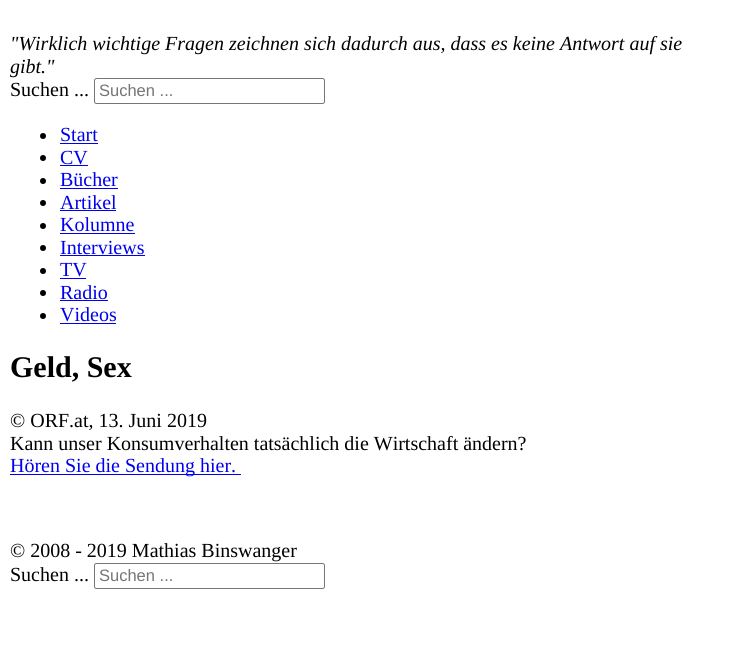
#include <cairo.h>
#include <math.h>
#include <stddef.h>

static cairo_t *ctx;

static void use_color(int r, int g, int b) {
    cairo_set_source_rgb(ctx, r / 255.0, g / 255.0, b / 255.0);
}

static void round_rect(double x, double y, double w, double h, double r) {
    cairo_new_sub_path(ctx);
    cairo_arc(ctx, x + w - r, y + h - r, r, 0, M_PI / 2);
    cairo_arc(ctx, x + r, y + h - r, r, M_PI / 2, M_PI);
    cairo_arc(ctx, x + r, y + r, r, M_PI, 1.5 * M_PI);
    cairo_arc(ctx, x + w - r, y + r, r, 1.5 * M_PI, 2 * M_PI);
    cairo_close_path(ctx);
}

int main(void) {
    cairo_surface_t *surface = cairo_image_surface_create(CAIRO_FORMAT_RGB24, 733, 647);
    ctx = cairo_create(surface);
    cairo_font_options_t *options = cairo_font_options_create();
    cairo_font_options_set_hint_metrics(options, CAIRO_HINT_METRICS_OFF);
    cairo_font_options_set_hint_style(options, CAIRO_HINT_STYLE_NONE);
    cairo_set_font_options(ctx, options);
    cairo_set_miter_limit(ctx, 4);
    use_color(255, 255, 255);
    cairo_paint(ctx);
    cairo_select_font_face(ctx, "Liberation Serif", CAIRO_FONT_SLANT_ITALIC, CAIRO_FONT_WEIGHT_NORMAL);
    cairo_set_font_size(ctx, 20);
    use_color(0, 0, 0);
    cairo_move_to(ctx, 10, 50);
    cairo_show_text(ctx, "\"Wirklich wichtige Fragen zeichnen sich dadurch aus, dass es keine Antwort auf sie");
    cairo_move_to(ctx, 10, 73);
    cairo_show_text(ctx, "gibt.\"");
    cairo_select_font_face(ctx, "Liberation Serif", CAIRO_FONT_SLANT_NORMAL, CAIRO_FONT_WEIGHT_NORMAL);
    cairo_move_to(ctx, 10, 96);
    cairo_show_text(ctx, "Suchen ...");
    round_rect(94.5, 78.5, 230, 25, 2);
    use_color(118, 118, 118);
    cairo_set_line_width(ctx, 1);
    cairo_stroke(ctx);
    cairo_select_font_face(ctx, "Liberation Sans", CAIRO_FONT_SLANT_NORMAL, CAIRO_FONT_WEIGHT_NORMAL);
    cairo_set_font_size(ctx, 16.5);
    use_color(117, 117, 117);
    cairo_move_to(ctx, 99, 96);
    cairo_show_text(ctx, "Suchen ...");
    use_color(0, 0, 0);
    cairo_new_path(ctx);
    cairo_arc(ctx, 43, 136, 3, 0, 2 * M_PI);
    cairo_fill(ctx);
    cairo_select_font_face(ctx, "Liberation Serif", CAIRO_FONT_SLANT_NORMAL, CAIRO_FONT_WEIGHT_NORMAL);
    cairo_set_font_size(ctx, 20);
    use_color(0, 0, 238);
    cairo_move_to(ctx, 60, 141);
    cairo_show_text(ctx, "Start");
    cairo_rectangle(ctx, 60, 143, 38, 1);
    cairo_fill(ctx);
    use_color(0, 0, 0);
    cairo_arc(ctx, 43, 158, 3, 0, 2 * M_PI);
    cairo_fill(ctx);
    use_color(0, 0, 238);
    cairo_move_to(ctx, 60, 164);
    cairo_show_text(ctx, "CV");
    cairo_rectangle(ctx, 60, 165, 28, 1);
    cairo_fill(ctx);
    use_color(0, 0, 0);
    cairo_arc(ctx, 43, 181, 3, 0, 2 * M_PI);
    cairo_fill(ctx);
    use_color(0, 0, 238);
    cairo_move_to(ctx, 60, 186);
    cairo_show_text(ctx, "Bücher");
    cairo_rectangle(ctx, 60, 188, 58, 1);
    cairo_fill(ctx);
    use_color(0, 0, 0);
    cairo_arc(ctx, 43, 203, 3, 0, 2 * M_PI);
    cairo_fill(ctx);
    use_color(0, 0, 238);
    cairo_move_to(ctx, 60, 209);
    cairo_show_text(ctx, "Artikel");
    cairo_rectangle(ctx, 60, 210, 56, 1);
    cairo_fill(ctx);
    use_color(0, 0, 0);
    cairo_arc(ctx, 43, 226, 3, 0, 2 * M_PI);
    cairo_fill(ctx);
    use_color(0, 0, 238);
    cairo_move_to(ctx, 60, 231);
    cairo_show_text(ctx, "Kolumne");
    cairo_rectangle(ctx, 60, 233, 75, 1);
    cairo_fill(ctx);
    use_color(0, 0, 0);
    cairo_arc(ctx, 43, 248, 3, 0, 2 * M_PI);
    cairo_fill(ctx);
    use_color(0, 0, 238);
    cairo_move_to(ctx, 60, 254);
    cairo_show_text(ctx, "Interviews");
    cairo_rectangle(ctx, 60, 255, 85, 1);
    cairo_fill(ctx);
    use_color(0, 0, 0);
    cairo_arc(ctx, 43, 271, 3, 0, 2 * M_PI);
    cairo_fill(ctx);
    use_color(0, 0, 238);
    cairo_move_to(ctx, 60, 276);
    cairo_show_text(ctx, "TV");
    cairo_rectangle(ctx, 60, 278, 26, 1);
    cairo_fill(ctx);
    use_color(0, 0, 0);
    cairo_arc(ctx, 43, 293, 3, 0, 2 * M_PI);
    cairo_fill(ctx);
    use_color(0, 0, 238);
    cairo_move_to(ctx, 60, 299);
    cairo_show_text(ctx, "Radio");
    cairo_rectangle(ctx, 60, 300, 48, 1);
    cairo_fill(ctx);
    use_color(0, 0, 0);
    cairo_arc(ctx, 43, 316, 3, 0, 2 * M_PI);
    cairo_fill(ctx);
    use_color(0, 0, 238);
    cairo_move_to(ctx, 60, 321);
    cairo_show_text(ctx, "Videos");
    cairo_rectangle(ctx, 60, 323, 56, 1);
    cairo_fill(ctx);
    cairo_select_font_face(ctx, "Liberation Serif", CAIRO_FONT_SLANT_NORMAL, CAIRO_FONT_WEIGHT_BOLD);
    cairo_set_font_size(ctx, 30);
    use_color(0, 0, 0);
    cairo_move_to(ctx, 10, 377);
    cairo_show_text(ctx, "Geld, Sex");
    cairo_select_font_face(ctx, "Liberation Serif", CAIRO_FONT_SLANT_NORMAL, CAIRO_FONT_WEIGHT_NORMAL);
    cairo_set_font_size(ctx, 20);
    cairo_move_to(ctx, 10, 427);
    cairo_show_text(ctx, "© ORF.at, 13. Juni 2019");
    cairo_move_to(ctx, 10, 450);
    cairo_show_text(ctx, "Kann unser Konsumverhalten tatsächlich die Wirtschaft ändern?");
    use_color(0, 0, 238);
    cairo_rectangle(ctx, 10, 474, 231, 1);
    cairo_fill(ctx);
    cairo_move_to(ctx, 10, 472);
    cairo_show_text(ctx, "Hören Sie die Sendung hier.");
    use_color(0, 0, 0);
    cairo_move_to(ctx, 10, 557);
    cairo_show_text(ctx, "© 2008 - 2019 Mathias Binswanger");
    cairo_move_to(ctx, 10, 581);
    cairo_show_text(ctx, "Suchen ...");
    round_rect(94.5, 563.5, 230, 25, 2);
    use_color(118, 118, 118);
    cairo_stroke(ctx);
    cairo_select_font_face(ctx, "Liberation Sans", CAIRO_FONT_SLANT_NORMAL, CAIRO_FONT_WEIGHT_NORMAL);
    cairo_set_font_size(ctx, 16.5);
    use_color(117, 117, 117);
    cairo_move_to(ctx, 99, 581);
    cairo_show_text(ctx, "Suchen ...");
    cairo_surface_write_to_png(surface, "result.png");
    cairo_font_options_destroy(options);
    cairo_destroy(ctx);
    cairo_surface_destroy(surface);
    return 0;
}
